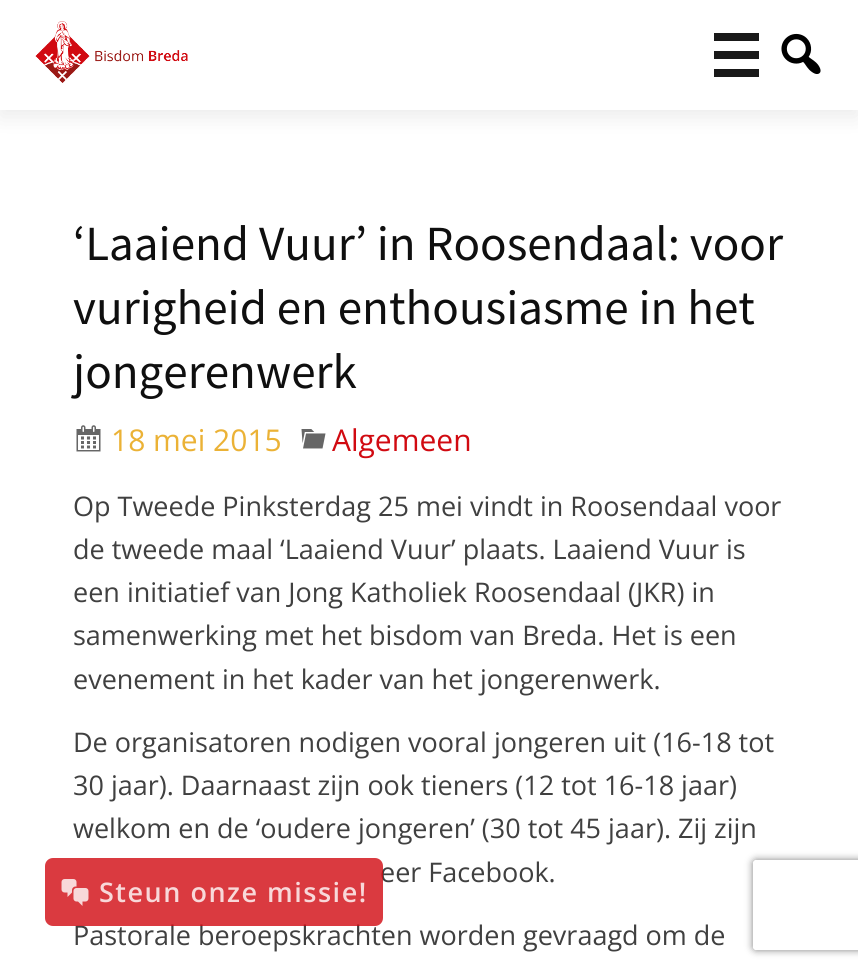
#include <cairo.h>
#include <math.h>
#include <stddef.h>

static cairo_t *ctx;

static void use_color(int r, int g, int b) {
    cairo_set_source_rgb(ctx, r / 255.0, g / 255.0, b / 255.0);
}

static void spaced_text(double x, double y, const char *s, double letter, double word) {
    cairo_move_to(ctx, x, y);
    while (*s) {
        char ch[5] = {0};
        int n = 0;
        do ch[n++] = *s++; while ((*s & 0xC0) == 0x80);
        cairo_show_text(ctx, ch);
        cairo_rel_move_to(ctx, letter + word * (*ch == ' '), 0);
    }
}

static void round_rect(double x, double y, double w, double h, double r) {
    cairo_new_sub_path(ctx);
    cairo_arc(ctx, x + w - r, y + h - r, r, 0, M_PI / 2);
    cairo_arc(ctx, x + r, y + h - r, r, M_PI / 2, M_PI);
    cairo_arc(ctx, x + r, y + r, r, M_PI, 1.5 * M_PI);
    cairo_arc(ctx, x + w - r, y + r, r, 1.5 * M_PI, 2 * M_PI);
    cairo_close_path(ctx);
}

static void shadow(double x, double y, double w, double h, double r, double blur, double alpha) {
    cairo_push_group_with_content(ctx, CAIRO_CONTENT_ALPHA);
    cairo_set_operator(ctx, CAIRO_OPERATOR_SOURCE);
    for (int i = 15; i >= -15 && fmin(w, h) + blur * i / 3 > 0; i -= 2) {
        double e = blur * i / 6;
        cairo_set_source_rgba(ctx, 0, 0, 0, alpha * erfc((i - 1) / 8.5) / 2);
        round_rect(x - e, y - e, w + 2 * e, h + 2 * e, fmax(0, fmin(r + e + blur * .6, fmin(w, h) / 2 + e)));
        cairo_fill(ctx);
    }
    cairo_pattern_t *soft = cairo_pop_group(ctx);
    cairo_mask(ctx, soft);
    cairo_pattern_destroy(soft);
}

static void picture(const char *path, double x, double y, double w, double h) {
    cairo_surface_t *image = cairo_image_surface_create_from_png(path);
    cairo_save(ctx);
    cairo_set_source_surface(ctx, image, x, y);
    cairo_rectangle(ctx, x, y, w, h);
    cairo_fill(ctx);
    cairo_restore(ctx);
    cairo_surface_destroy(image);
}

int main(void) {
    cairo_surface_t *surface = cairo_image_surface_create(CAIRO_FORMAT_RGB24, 858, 970);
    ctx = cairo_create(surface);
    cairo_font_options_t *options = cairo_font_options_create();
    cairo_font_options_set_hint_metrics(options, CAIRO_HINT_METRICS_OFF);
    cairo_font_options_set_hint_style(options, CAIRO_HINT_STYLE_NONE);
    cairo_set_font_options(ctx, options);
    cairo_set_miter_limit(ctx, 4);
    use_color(255, 255, 255);
    cairo_paint(ctx);
    use_color(0, 0, 0);
    shadow(0, 8, 858, 109, 0, 11, 0.08);
    use_color(255, 255, 255);
    cairo_rectangle(ctx, 0, 0, 858, 110);
    cairo_fill(ctx);
    picture("img1.png", 35, 21, 153, 62);
    use_color(25, 25, 25);
    cairo_rectangle(ctx, 714, 33, 45, 8);
    cairo_fill(ctx);
    cairo_rectangle(ctx, 714, 51, 45, 8);
    cairo_fill(ctx);
    cairo_rectangle(ctx, 714, 69, 45, 8);
    cairo_fill(ctx);
    picture("img2.png", 781, 33, 40, 41);
    cairo_select_font_face(ctx, "Source Sans Pro", CAIRO_FONT_SLANT_NORMAL, CAIRO_FONT_WEIGHT_NORMAL);
    cairo_set_font_size(ctx, 49.1);
    use_color(15, 15, 15);
    cairo_move_to(ctx, 73, 260);
    cairo_show_text(ctx, "‘Laaiend Vuur’ in Roosendaal: voor");
    cairo_move_to(ctx, 73, 324);
    cairo_show_text(ctx, "vurigheid en enthousiasme in het");
    cairo_move_to(ctx, 73, 388);
    cairo_show_text(ctx, "jongerenwerk");
    picture("img3.png", 76, 425, 25, 27);
    cairo_select_font_face(ctx, "Open Sans", CAIRO_FONT_SLANT_NORMAL, CAIRO_FONT_WEIGHT_NORMAL);
    cairo_set_font_size(ctx, 30);
    use_color(235, 178, 54);
    cairo_move_to(ctx, 111, 451);
    cairo_show_text(ctx, "18 mei 2015");
    picture("img4.png", 301, 429, 25, 20);
    use_color(209, 10, 17);
    cairo_move_to(ctx, 332, 451);
    cairo_show_text(ctx, "Algemeen");
    cairo_set_font_size(ctx, 27);
    use_color(64, 64, 64);
    cairo_move_to(ctx, 73, 516);
    cairo_show_text(ctx, "Op Tweede Pinksterdag 25 mei vindt in Roosendaal voor");
    cairo_move_to(ctx, 73, 559);
    cairo_show_text(ctx, "de tweede maal ‘Laaiend Vuur’ plaats. Laaiend Vuur is");
    cairo_move_to(ctx, 73, 602);
    cairo_show_text(ctx, "een initiatief van Jong Katholiek Roosendaal (JKR) in");
    cairo_move_to(ctx, 73, 645);
    cairo_show_text(ctx, "samenwerking met het bisdom van Breda. Het is een");
    cairo_move_to(ctx, 73, 689);
    cairo_show_text(ctx, "evenement in het kader van het jongerenwerk.");
    cairo_move_to(ctx, 73, 752);
    cairo_show_text(ctx, "De organisatoren nodigen vooral jongeren uit (16-18 tot");
    cairo_move_to(ctx, 73, 795);
    cairo_show_text(ctx, "30 jaar). Daarnaast zijn ook tieners (12 tot 16-18 jaar)");
    cairo_move_to(ctx, 73, 838);
    cairo_show_text(ctx, "welkom en de ‘oudere jongeren’ (30 tot 45 jaar). Zij zijn");
    cairo_move_to(ctx, 380, 882);
    cairo_show_text(ctx, "eer Facebook.");
    cairo_move_to(ctx, 73, 945);
    cairo_show_text(ctx, "Pastorale beroepskrachten worden gevraagd om de");
    cairo_save(ctx);
    cairo_set_fill_rule(ctx, CAIRO_FILL_RULE_EVEN_ODD);
    cairo_new_path(ctx);
    cairo_move_to(ctx, 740, 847);
    cairo_line_to(ctx, 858, 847);
    cairo_line_to(ctx, 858, 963);
    cairo_line_to(ctx, 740, 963);
    cairo_close_path(ctx);
    cairo_move_to(ctx, 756, 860);
    cairo_line_to(ctx, 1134, 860);
    cairo_curve_to(ctx, 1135.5, 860, 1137, 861.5, 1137, 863);
    cairo_line_to(ctx, 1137, 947);
    cairo_curve_to(ctx, 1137, 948.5, 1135.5, 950, 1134, 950);
    cairo_line_to(ctx, 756, 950);
    cairo_curve_to(ctx, 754.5, 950, 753, 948.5, 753, 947);
    cairo_line_to(ctx, 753, 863);
    cairo_curve_to(ctx, 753, 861.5, 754.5, 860, 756, 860);
    cairo_close_path(ctx);
    cairo_clip(ctx);
    use_color(128, 128, 128);
    shadow(753, 860, 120, 90, 3, 4, 1);
    cairo_restore(ctx);
    cairo_set_source_rgba(ctx, 0.82, 0.039, 0.067, 0.8);
    round_rect(45, 858, 338, 68, 8);
    cairo_fill(ctx);
    picture("img5.png", 61, 879, 28, 27);
    cairo_select_font_face(ctx, "Open Sans SemiBold", CAIRO_FONT_SLANT_NORMAL, CAIRO_FONT_WEIGHT_NORMAL);
    use_color(248, 216, 217);
    spaced_text(99, 902, "Steun onze missie!", 1.5, 0);
    cairo_surface_write_to_png(surface, "result.png");
    cairo_font_options_destroy(options);
    cairo_destroy(ctx);
    cairo_surface_destroy(surface);
    return 0;
}
